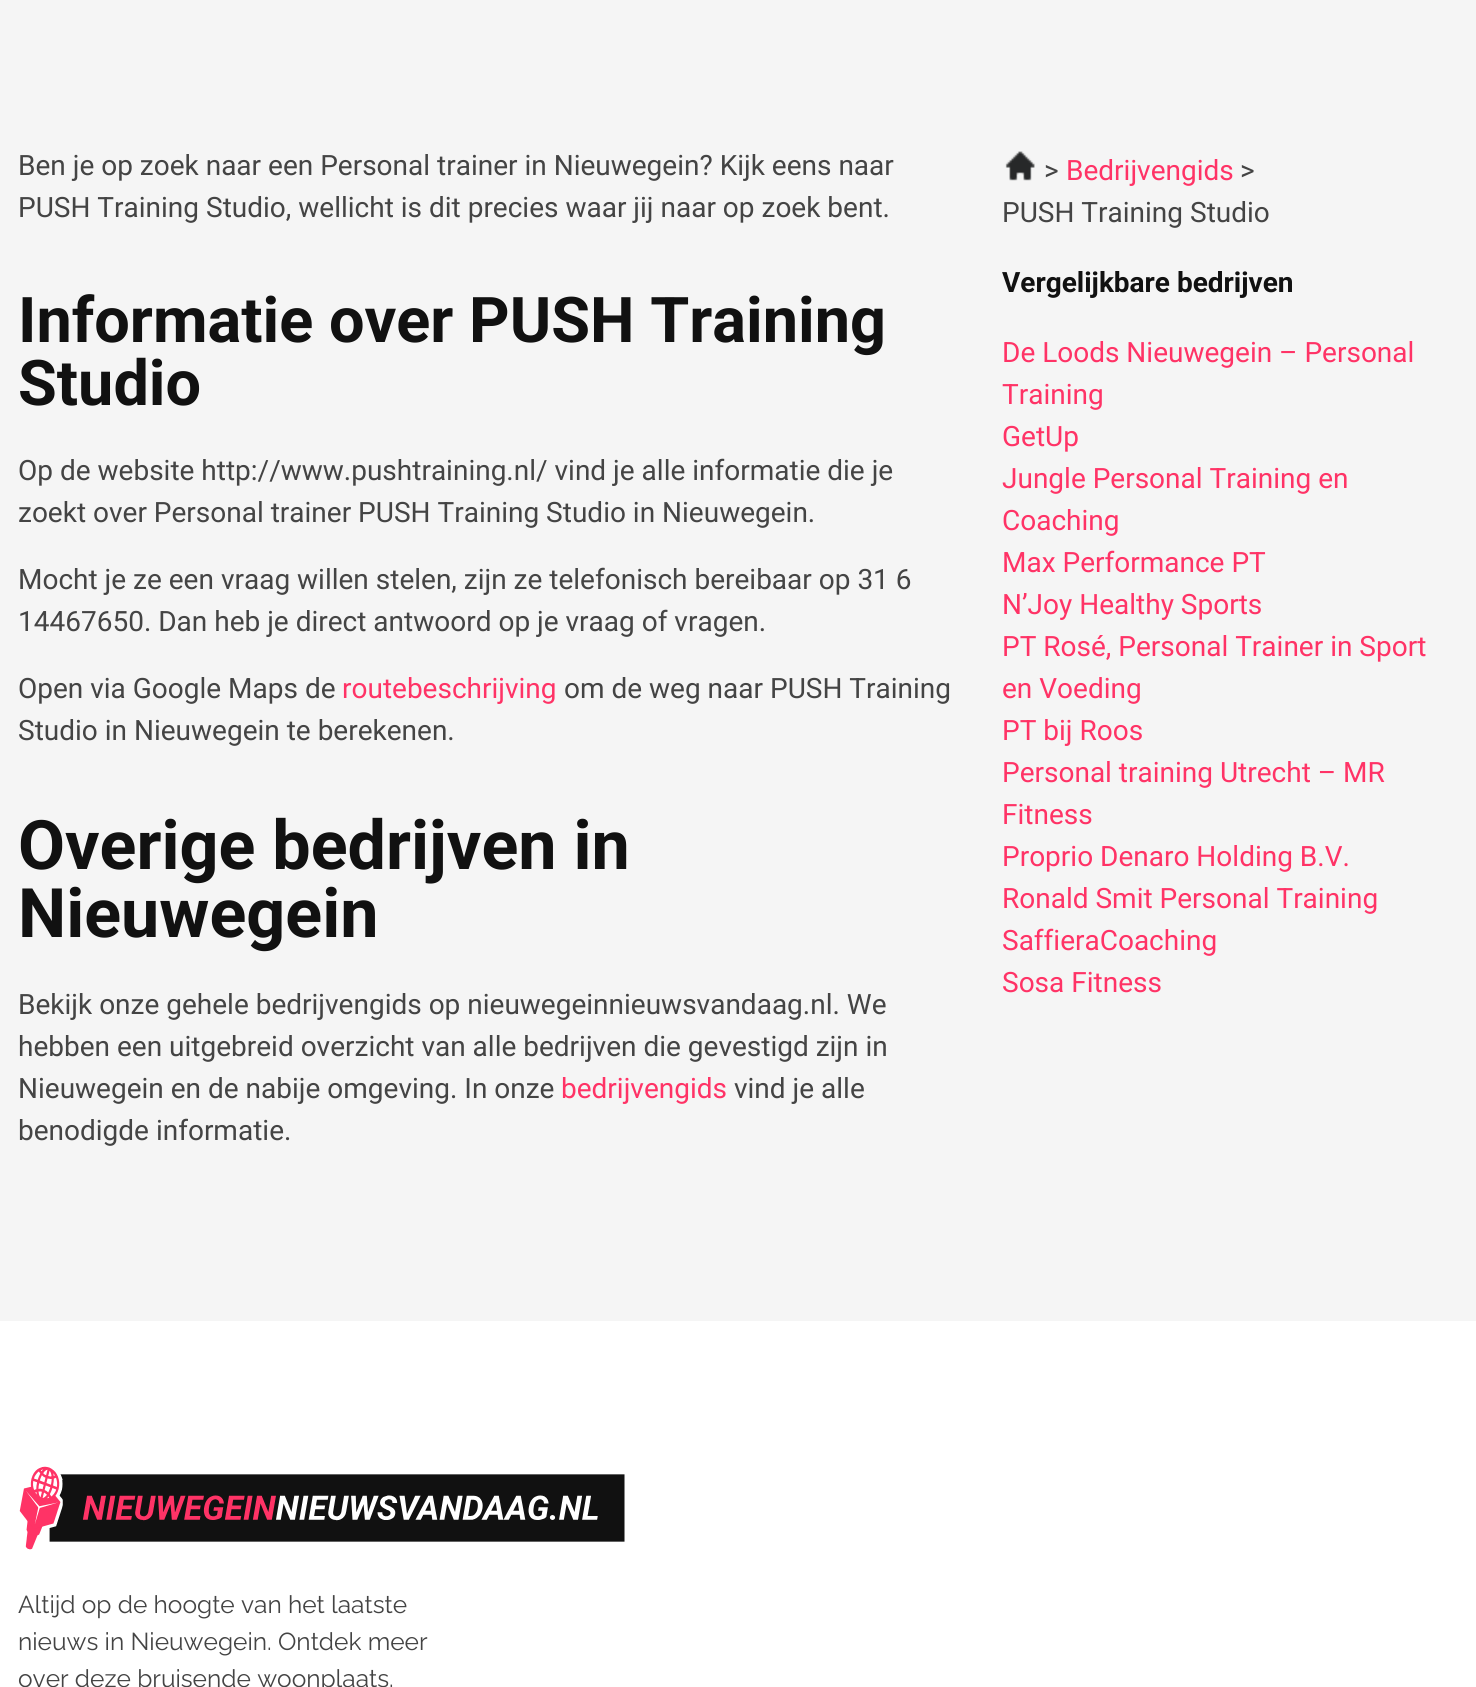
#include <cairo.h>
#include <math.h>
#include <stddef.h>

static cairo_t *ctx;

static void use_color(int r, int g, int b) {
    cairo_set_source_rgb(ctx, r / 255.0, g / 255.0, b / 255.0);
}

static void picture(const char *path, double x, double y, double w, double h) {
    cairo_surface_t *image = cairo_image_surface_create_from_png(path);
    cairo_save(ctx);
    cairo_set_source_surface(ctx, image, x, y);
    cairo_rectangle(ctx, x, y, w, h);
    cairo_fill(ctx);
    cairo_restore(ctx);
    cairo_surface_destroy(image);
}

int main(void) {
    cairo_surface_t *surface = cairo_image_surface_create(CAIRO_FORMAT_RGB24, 1476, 1687);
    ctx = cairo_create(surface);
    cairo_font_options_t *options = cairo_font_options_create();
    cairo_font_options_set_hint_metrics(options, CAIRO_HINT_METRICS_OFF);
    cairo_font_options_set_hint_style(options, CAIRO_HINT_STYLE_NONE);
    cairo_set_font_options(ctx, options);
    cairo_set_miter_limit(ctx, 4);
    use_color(245, 245, 245);
    cairo_paint(ctx);
    cairo_select_font_face(ctx, "Roboto", CAIRO_FONT_SLANT_NORMAL, CAIRO_FONT_WEIGHT_NORMAL);
    cairo_set_font_size(ctx, 28);
    use_color(68, 68, 68);
    cairo_move_to(ctx, 18, 175);
    cairo_show_text(ctx, "Ben je op zoek naar een Personal trainer in Nieuwegein? Kijk eens naar");
    cairo_move_to(ctx, 18, 217);
    cairo_show_text(ctx, "PUSH Training Studio, wellicht is dit precies waar jij naar op zoek bent.");
    cairo_select_font_face(ctx, "Roboto", CAIRO_FONT_SLANT_NORMAL, CAIRO_FONT_WEIGHT_BOLD);
    cairo_set_font_size(ctx, 63);
    use_color(17, 17, 17);
    cairo_move_to(ctx, 18, 342);
    cairo_show_text(ctx, "Informatie over PUSH Training");
    cairo_move_to(ctx, 18, 405);
    cairo_show_text(ctx, "Studio");
    cairo_select_font_face(ctx, "Roboto", CAIRO_FONT_SLANT_NORMAL, CAIRO_FONT_WEIGHT_NORMAL);
    cairo_set_font_size(ctx, 28);
    use_color(68, 68, 68);
    cairo_move_to(ctx, 18, 480);
    cairo_show_text(ctx, "Op de website http://www.pushtraining.nl/ vind je alle informatie die je");
    cairo_move_to(ctx, 18, 522);
    cairo_show_text(ctx, "zoekt over Personal trainer PUSH Training Studio in Nieuwegein.");
    cairo_move_to(ctx, 18, 589);
    cairo_show_text(ctx, "Mocht je ze een vraag willen stelen, zijn ze telefonisch bereibaar op 31 6");
    cairo_move_to(ctx, 18, 631);
    cairo_show_text(ctx, "14467650. Dan heb je direct antwoord op je vraag of vragen.");
    cairo_move_to(ctx, 18, 698);
    cairo_show_text(ctx, "Open via Google Maps de");
    use_color(255, 51, 102);
    cairo_move_to(ctx, 342, 698);
    cairo_show_text(ctx, "routebeschrijving");
    use_color(68, 68, 68);
    cairo_move_to(ctx, 564, 698);
    cairo_show_text(ctx, "om de weg naar PUSH Training");
    cairo_move_to(ctx, 18, 740);
    cairo_show_text(ctx, "Studio in Nieuwegein te berekenen.");
    cairo_select_font_face(ctx, "Roboto", CAIRO_FONT_SLANT_NORMAL, CAIRO_FONT_WEIGHT_BOLD);
    cairo_set_font_size(ctx, 68.25);
    use_color(17, 17, 17);
    cairo_move_to(ctx, 18, 869);
    cairo_show_text(ctx, "Overige bedrijven in");
    cairo_move_to(ctx, 18, 937);
    cairo_show_text(ctx, "Nieuwegein");
    cairo_select_font_face(ctx, "Roboto", CAIRO_FONT_SLANT_NORMAL, CAIRO_FONT_WEIGHT_NORMAL);
    cairo_set_font_size(ctx, 28);
    use_color(68, 68, 68);
    cairo_move_to(ctx, 18, 1014);
    cairo_show_text(ctx, "Bekijk onze gehele bedrijvengids op nieuwegeinnieuwsvandaag.nl. We");
    cairo_move_to(ctx, 18, 1056);
    cairo_show_text(ctx, "hebben een uitgebreid overzicht van alle bedrijven die gevestigd zijn in");
    cairo_move_to(ctx, 18, 1098);
    cairo_show_text(ctx, "Nieuwegein en de nabije omgeving. In onze");
    use_color(255, 51, 102);
    cairo_move_to(ctx, 561, 1098);
    cairo_show_text(ctx, "bedrijvengids");
    use_color(68, 68, 68);
    cairo_move_to(ctx, 734, 1098);
    cairo_show_text(ctx, "vind je alle");
    cairo_move_to(ctx, 18, 1140);
    cairo_show_text(ctx, "benodigde informatie.");
    picture("img1.png", 1005, 151, 30, 30);
    cairo_move_to(ctx, 1044, 180);
    cairo_show_text(ctx, ">");
    use_color(255, 51, 102);
    cairo_move_to(ctx, 1066, 180);
    cairo_show_text(ctx, "Bedrijvengids");
    use_color(68, 68, 68);
    cairo_move_to(ctx, 1240, 180);
    cairo_show_text(ctx, ">");
    cairo_move_to(ctx, 1002, 222);
    cairo_show_text(ctx, "PUSH Training Studio");
    cairo_select_font_face(ctx, "Roboto", CAIRO_FONT_SLANT_NORMAL, CAIRO_FONT_WEIGHT_BOLD);
    use_color(17, 17, 17);
    cairo_move_to(ctx, 1002, 292);
    cairo_show_text(ctx, "Vergelijkbare bedrijven");
    cairo_select_font_face(ctx, "Roboto", CAIRO_FONT_SLANT_NORMAL, CAIRO_FONT_WEIGHT_NORMAL);
    use_color(255, 51, 102);
    cairo_move_to(ctx, 1002, 362);
    cairo_show_text(ctx, "De Loods Nieuwegein – Personal");
    cairo_move_to(ctx, 1002, 404);
    cairo_show_text(ctx, "Training");
    cairo_move_to(ctx, 1002, 446);
    cairo_show_text(ctx, "GetUp");
    cairo_move_to(ctx, 1002, 488);
    cairo_show_text(ctx, "Jungle Personal Training en");
    cairo_move_to(ctx, 1002, 530);
    cairo_show_text(ctx, "Coaching");
    cairo_move_to(ctx, 1002, 572);
    cairo_show_text(ctx, "Max Performance PT");
    cairo_move_to(ctx, 1002, 614);
    cairo_show_text(ctx, "N’Joy Healthy Sports");
    cairo_move_to(ctx, 1002, 656);
    cairo_show_text(ctx, "PT Rosé, Personal Trainer in Sport");
    cairo_move_to(ctx, 1002, 698);
    cairo_show_text(ctx, "en Voeding");
    cairo_move_to(ctx, 1002, 740);
    cairo_show_text(ctx, "PT bij Roos");
    cairo_move_to(ctx, 1002, 782);
    cairo_show_text(ctx, "Personal training Utrecht – MR");
    cairo_move_to(ctx, 1002, 824);
    cairo_show_text(ctx, "Fitness");
    cairo_move_to(ctx, 1002, 866);
    cairo_show_text(ctx, "Proprio Denaro Holding B.V.");
    cairo_move_to(ctx, 1002, 908);
    cairo_show_text(ctx, "Ronald Smit Personal Training");
    cairo_move_to(ctx, 1002, 950);
    cairo_show_text(ctx, "SaffieraCoaching");
    cairo_move_to(ctx, 1002, 992);
    cairo_show_text(ctx, "Sosa Fitness");
    use_color(255, 255, 255);
    cairo_rectangle(ctx, 0, 1321, 1476, 366);
    cairo_fill(ctx);
    picture("img2.png", 19, 1466, 606, 84);
    cairo_select_font_face(ctx, "Raleway", CAIRO_FONT_SLANT_NORMAL, CAIRO_FONT_WEIGHT_NORMAL);
    cairo_set_font_size(ctx, 24.5);
    use_color(68, 68, 68);
    cairo_move_to(ctx, 18, 1613);
    cairo_show_text(ctx, "Altijd op de hoogte van het laatste");
    cairo_move_to(ctx, 18, 1650);
    cairo_show_text(ctx, "nieuws in Nieuwegein. Ontdek meer");
    cairo_move_to(ctx, 18, 1687);
    cairo_show_text(ctx, "over deze bruisende woonplaats.");
    cairo_surface_write_to_png(surface, "result.png");
    cairo_font_options_destroy(options);
    cairo_destroy(ctx);
    cairo_surface_destroy(surface);
    return 0;
}
